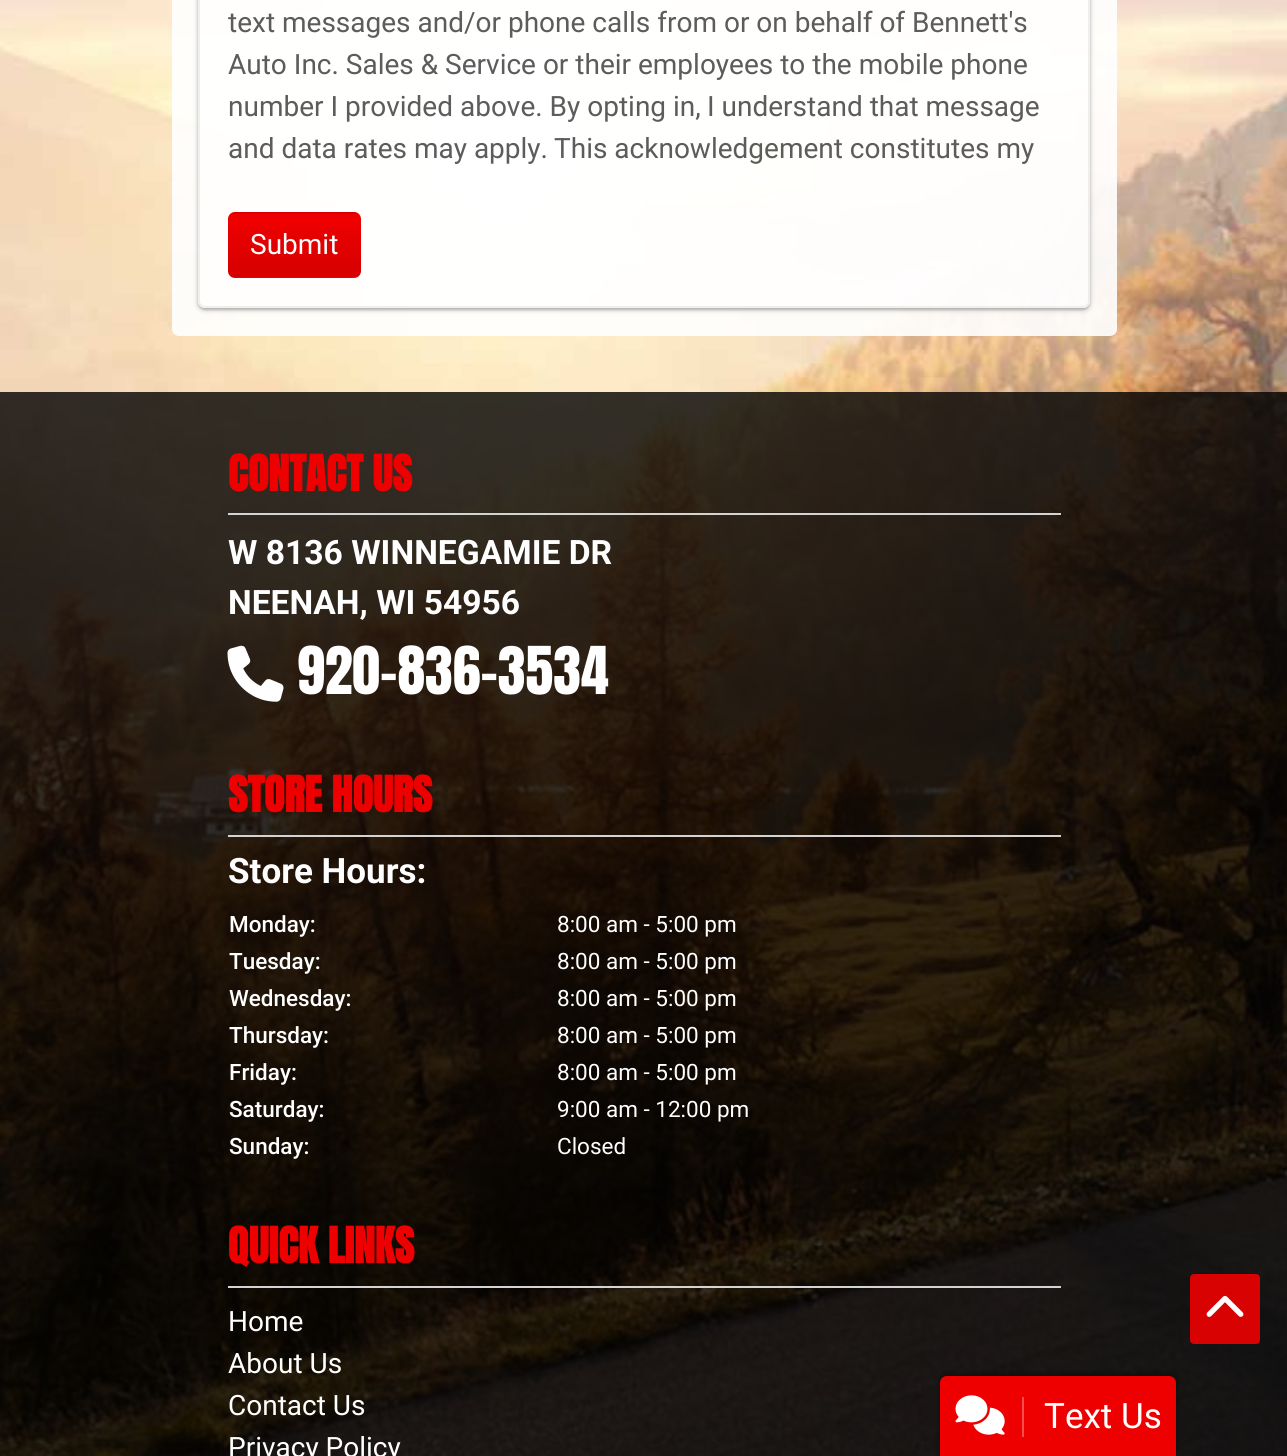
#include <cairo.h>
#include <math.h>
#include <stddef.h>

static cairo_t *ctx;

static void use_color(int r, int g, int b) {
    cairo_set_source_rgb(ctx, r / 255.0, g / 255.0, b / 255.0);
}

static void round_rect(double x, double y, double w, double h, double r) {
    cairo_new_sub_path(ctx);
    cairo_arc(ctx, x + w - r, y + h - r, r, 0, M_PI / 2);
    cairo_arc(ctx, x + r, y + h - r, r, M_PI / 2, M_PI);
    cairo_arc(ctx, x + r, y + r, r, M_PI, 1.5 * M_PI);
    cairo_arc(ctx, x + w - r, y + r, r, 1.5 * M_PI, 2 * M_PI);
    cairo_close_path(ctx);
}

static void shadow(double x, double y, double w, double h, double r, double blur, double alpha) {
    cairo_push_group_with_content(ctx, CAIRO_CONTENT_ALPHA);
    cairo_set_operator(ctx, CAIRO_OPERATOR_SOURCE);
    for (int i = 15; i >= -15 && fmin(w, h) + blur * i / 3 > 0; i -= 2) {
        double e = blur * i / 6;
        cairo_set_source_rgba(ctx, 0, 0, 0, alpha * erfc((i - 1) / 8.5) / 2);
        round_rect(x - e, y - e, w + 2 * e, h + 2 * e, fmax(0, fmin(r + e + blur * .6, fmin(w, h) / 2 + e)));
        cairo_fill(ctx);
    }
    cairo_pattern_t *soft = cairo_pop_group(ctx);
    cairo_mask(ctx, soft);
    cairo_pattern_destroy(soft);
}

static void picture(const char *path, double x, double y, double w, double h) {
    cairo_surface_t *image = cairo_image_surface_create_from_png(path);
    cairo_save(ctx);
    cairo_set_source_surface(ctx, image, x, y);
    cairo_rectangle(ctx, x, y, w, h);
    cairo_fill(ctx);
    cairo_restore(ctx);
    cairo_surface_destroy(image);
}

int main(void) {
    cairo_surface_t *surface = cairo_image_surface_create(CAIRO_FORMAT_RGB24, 1287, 1456);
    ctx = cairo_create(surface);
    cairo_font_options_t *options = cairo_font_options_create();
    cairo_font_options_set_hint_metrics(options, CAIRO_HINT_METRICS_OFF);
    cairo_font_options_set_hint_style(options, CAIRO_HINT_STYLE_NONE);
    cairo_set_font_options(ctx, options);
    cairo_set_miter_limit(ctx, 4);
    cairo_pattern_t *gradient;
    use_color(255, 255, 255);
    cairo_paint(ctx);
    picture("img1.png", 0, 0, 1287, 1456);
    cairo_set_source_rgba(ctx, 1, 1, 1, 0.9);
    round_rect(172, -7, 945, 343, 7);
    cairo_fill(ctx);
    cairo_save(ctx);
    cairo_set_fill_rule(ctx, CAIRO_FILL_RULE_EVEN_ODD);
    cairo_new_path(ctx);
    cairo_move_to(ctx, 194, 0);
    cairo_line_to(ctx, 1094, 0);
    cairo_line_to(ctx, 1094, 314);
    cairo_line_to(ctx, 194, 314);
    cairo_close_path(ctx);
    cairo_move_to(ctx, 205, -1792);
    cairo_line_to(ctx, 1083, -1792);
    cairo_curve_to(ctx, 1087, -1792, 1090, -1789, 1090, -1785);
    cairo_line_to(ctx, 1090, 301);
    cairo_curve_to(ctx, 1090, 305, 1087, 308, 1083, 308);
    cairo_line_to(ctx, 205, 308);
    cairo_curve_to(ctx, 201, 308, 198, 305, 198, 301);
    cairo_line_to(ctx, 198, -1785);
    cairo_curve_to(ctx, 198, -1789, 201, -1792, 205, -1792);
    cairo_close_path(ctx);
    cairo_clip(ctx);
    use_color(0, 0, 0);
    shadow(198, -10, 892, 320, 7, 1, 0.2);
    cairo_restore(ctx);
    cairo_save(ctx);
    cairo_set_fill_rule(ctx, CAIRO_FILL_RULE_EVEN_ODD);
    cairo_new_path(ctx);
    cairo_move_to(ctx, 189, 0);
    cairo_line_to(ctx, 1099, 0);
    cairo_line_to(ctx, 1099, 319);
    cairo_line_to(ctx, 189, 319);
    cairo_close_path(ctx);
    cairo_move_to(ctx, 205, -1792);
    cairo_line_to(ctx, 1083, -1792);
    cairo_curve_to(ctx, 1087, -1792, 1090, -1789, 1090, -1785);
    cairo_line_to(ctx, 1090, 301);
    cairo_curve_to(ctx, 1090, 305, 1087, 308, 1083, 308);
    cairo_line_to(ctx, 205, 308);
    cairo_curve_to(ctx, 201, 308, 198, 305, 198, 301);
    cairo_line_to(ctx, 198, -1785);
    cairo_curve_to(ctx, 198, -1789, 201, -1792, 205, -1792);
    cairo_close_path(ctx);
    cairo_clip(ctx);
    use_color(0, 0, 0);
    shadow(196, -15, 896, 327, 9, 2, 0.1);
    cairo_restore(ctx);
    cairo_set_source_rgba(ctx, 1, 1, 1, 0.6);
    round_rect(198, -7, 892, 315, 7);
    cairo_fill(ctx);
    round_rect(199, -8, 890, 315, 6);
    cairo_set_source_rgba(ctx, 0.922, 0.922, 0.922, 0.8);
    cairo_stroke(ctx);
    cairo_select_font_face(ctx, "Roboto", CAIRO_FONT_SLANT_NORMAL, CAIRO_FONT_WEIGHT_NORMAL);
    cairo_set_font_size(ctx, 28);
    use_color(92, 92, 91);
    cairo_move_to(ctx, 228, 32);
    cairo_show_text(ctx, "text messages and/or phone calls from or on behalf of Bennett's");
    cairo_move_to(ctx, 228, 74);
    cairo_show_text(ctx, "Auto Inc. Sales & Service or their employees to the mobile phone");
    cairo_move_to(ctx, 228, 116);
    cairo_show_text(ctx, "number I provided above. By opting in,");
    cairo_move_to(ctx, 707, 116);
    cairo_show_text(ctx, "I understand that message");
    cairo_move_to(ctx, 228, 158);
    cairo_show_text(ctx, "and data rates may apply.");
    cairo_move_to(ctx, 554, 158);
    cairo_show_text(ctx, "This acknowledgement constitutes my");
    use_color(238, 0, 0);
    round_rect(228, 212, 133, 66, 7);
    cairo_fill(ctx);
    cairo_save(ctx);
    round_rect(228, 212, 133, 66, 7);
    cairo_clip(ctx);
    gradient = cairo_pattern_create_linear(294, 151, 294, 214);
    cairo_pattern_add_color_stop_rgba(gradient, 0, 0, 0, 0, 0);
    cairo_pattern_add_color_stop_rgba(gradient, 1, 0, 0, 0, 0.1);
    cairo_set_source(ctx, gradient);
    cairo_pattern_destroy(gradient);
    cairo_rectangle(ctx, 228, 212, 133, 2);
    cairo_fill(ctx);
    gradient = cairo_pattern_create_linear(294, 214, 294, 277);
    cairo_pattern_add_color_stop_rgba(gradient, 0, 0, 0, 0, 0);
    cairo_pattern_add_color_stop_rgba(gradient, 1, 0, 0, 0, 0.1);
    cairo_set_source(ctx, gradient);
    cairo_pattern_destroy(gradient);
    cairo_rectangle(ctx, 228, 228, 133, 49);
    cairo_fill(ctx);
    cairo_restore(ctx);
    use_color(255, 255, 255);
    cairo_move_to(ctx, 250, 254);
    cairo_show_text(ctx, "Submit");
    cairo_set_source_rgba(ctx, 0, 0, 0, 0.8);
    cairo_rectangle(ctx, 0, 392, 1287, 1064);
    cairo_fill(ctx);
    use_color(211, 211, 211);
    cairo_rectangle(ctx, 228, 513, 833, 2);
    cairo_fill(ctx);
    cairo_select_font_face(ctx, "Anton", CAIRO_FONT_SLANT_NORMAL, CAIRO_FONT_WEIGHT_BOLD);
    cairo_set_font_size(ctx, 42);
    use_color(238, 0, 0);
    cairo_move_to(ctx, 228, 491);
    cairo_show_text(ctx, "CONTACT US");
    cairo_select_font_face(ctx, "Roboto", CAIRO_FONT_SLANT_NORMAL, CAIRO_FONT_WEIGHT_BOLD);
    cairo_set_font_size(ctx, 33.6);
    use_color(255, 255, 255);
    cairo_move_to(ctx, 228, 564);
    cairo_show_text(ctx, "W 8136 WINNEGAMIE DR");
    cairo_move_to(ctx, 228, 614);
    cairo_show_text(ctx, "NEENAH, WI 54956");
    picture("img2.png", 227, 645, 57, 57);
    cairo_select_font_face(ctx, "Anton", CAIRO_FONT_SLANT_NORMAL, CAIRO_FONT_WEIGHT_NORMAL);
    cairo_set_font_size(ctx, 56);
    cairo_move_to(ctx, 297, 694);
    cairo_show_text(ctx, "920-836-3534");
    use_color(211, 211, 211);
    cairo_rectangle(ctx, 228, 835, 833, 2);
    cairo_fill(ctx);
    cairo_select_font_face(ctx, "Anton", CAIRO_FONT_SLANT_NORMAL, CAIRO_FONT_WEIGHT_BOLD);
    cairo_set_font_size(ctx, 42);
    use_color(238, 0, 0);
    cairo_move_to(ctx, 228, 812);
    cairo_show_text(ctx, "STORE HOURS");
    cairo_select_font_face(ctx, "Roboto", CAIRO_FONT_SLANT_NORMAL, CAIRO_FONT_WEIGHT_BOLD);
    cairo_set_font_size(ctx, 35);
    use_color(255, 255, 255);
    cairo_move_to(ctx, 228, 883);
    cairo_show_text(ctx, "Store Hours:");
    cairo_select_font_face(ctx, "Roboto Medium", CAIRO_FONT_SLANT_NORMAL, CAIRO_FONT_WEIGHT_NORMAL);
    cairo_set_font_size(ctx, 22.5);
    cairo_move_to(ctx, 229, 932);
    cairo_show_text(ctx, "Monday:");
    cairo_select_font_face(ctx, "Roboto", CAIRO_FONT_SLANT_NORMAL, CAIRO_FONT_WEIGHT_NORMAL);
    cairo_move_to(ctx, 557, 932);
    cairo_show_text(ctx, "8:00 am - 5:00 pm");
    cairo_select_font_face(ctx, "Roboto Medium", CAIRO_FONT_SLANT_NORMAL, CAIRO_FONT_WEIGHT_NORMAL);
    cairo_move_to(ctx, 229, 969);
    cairo_show_text(ctx, "Tuesday:");
    cairo_select_font_face(ctx, "Roboto", CAIRO_FONT_SLANT_NORMAL, CAIRO_FONT_WEIGHT_NORMAL);
    cairo_move_to(ctx, 557, 969);
    cairo_show_text(ctx, "8:00 am - 5:00 pm");
    cairo_select_font_face(ctx, "Roboto Medium", CAIRO_FONT_SLANT_NORMAL, CAIRO_FONT_WEIGHT_NORMAL);
    cairo_move_to(ctx, 229, 1006);
    cairo_show_text(ctx, "Wednesday:");
    cairo_select_font_face(ctx, "Roboto", CAIRO_FONT_SLANT_NORMAL, CAIRO_FONT_WEIGHT_NORMAL);
    cairo_move_to(ctx, 557, 1006);
    cairo_show_text(ctx, "8:00 am - 5:00 pm");
    cairo_select_font_face(ctx, "Roboto Medium", CAIRO_FONT_SLANT_NORMAL, CAIRO_FONT_WEIGHT_NORMAL);
    cairo_move_to(ctx, 229, 1043);
    cairo_show_text(ctx, "Thursday:");
    cairo_select_font_face(ctx, "Roboto", CAIRO_FONT_SLANT_NORMAL, CAIRO_FONT_WEIGHT_NORMAL);
    cairo_move_to(ctx, 557, 1043);
    cairo_show_text(ctx, "8:00 am - 5:00 pm");
    cairo_select_font_face(ctx, "Roboto Medium", CAIRO_FONT_SLANT_NORMAL, CAIRO_FONT_WEIGHT_NORMAL);
    cairo_move_to(ctx, 229, 1080);
    cairo_show_text(ctx, "Friday:");
    cairo_select_font_face(ctx, "Roboto", CAIRO_FONT_SLANT_NORMAL, CAIRO_FONT_WEIGHT_NORMAL);
    cairo_move_to(ctx, 557, 1080);
    cairo_show_text(ctx, "8:00 am - 5:00 pm");
    cairo_select_font_face(ctx, "Roboto Medium", CAIRO_FONT_SLANT_NORMAL, CAIRO_FONT_WEIGHT_NORMAL);
    cairo_move_to(ctx, 229, 1117);
    cairo_show_text(ctx, "Saturday:");
    cairo_select_font_face(ctx, "Roboto", CAIRO_FONT_SLANT_NORMAL, CAIRO_FONT_WEIGHT_NORMAL);
    cairo_move_to(ctx, 557, 1117);
    cairo_show_text(ctx, "9:00 am - 12:00 pm");
    cairo_select_font_face(ctx, "Roboto Medium", CAIRO_FONT_SLANT_NORMAL, CAIRO_FONT_WEIGHT_NORMAL);
    cairo_move_to(ctx, 229, 1154);
    cairo_show_text(ctx, "Sunday:");
    cairo_select_font_face(ctx, "Roboto", CAIRO_FONT_SLANT_NORMAL, CAIRO_FONT_WEIGHT_NORMAL);
    cairo_move_to(ctx, 557, 1154);
    cairo_show_text(ctx, "Closed");
    use_color(211, 211, 211);
    cairo_rectangle(ctx, 228, 1286, 833, 2);
    cairo_fill(ctx);
    cairo_select_font_face(ctx, "Anton", CAIRO_FONT_SLANT_NORMAL, CAIRO_FONT_WEIGHT_BOLD);
    cairo_set_font_size(ctx, 42);
    use_color(238, 0, 0);
    cairo_move_to(ctx, 228, 1263);
    cairo_show_text(ctx, "QUICK LINKS");
    cairo_select_font_face(ctx, "Roboto", CAIRO_FONT_SLANT_NORMAL, CAIRO_FONT_WEIGHT_NORMAL);
    cairo_set_font_size(ctx, 28);
    use_color(255, 255, 255);
    cairo_move_to(ctx, 228, 1331);
    cairo_show_text(ctx, "Home");
    cairo_move_to(ctx, 228, 1373);
    cairo_show_text(ctx, "About Us");
    cairo_move_to(ctx, 228, 1415);
    cairo_show_text(ctx, "Contact Us");
    cairo_move_to(ctx, 228, 1457);
    cairo_show_text(ctx, "Privacy Policy");
    cairo_set_source_rgba(ctx, 0.933, 0, 0, 0.9);
    round_rect(1190, 1274, 70, 70, 4);
    cairo_fill(ctx);
    picture("img3.png", 1206, 1295, 38, 22);
    use_color(0, 0, 0);
    shadow(938, 1372, 240, 84, 9, 2, 0.25);
    use_color(238, 0, 0);
    cairo_new_path(ctx);
    cairo_move_to(ctx, 947, 1376);
    cairo_line_to(ctx, 1169, 1376);
    cairo_curve_to(ctx, 1173, 1376, 1176, 1379, 1176, 1383);
    cairo_line_to(ctx, 1176, 1456);
    cairo_line_to(ctx, 940, 1456);
    cairo_line_to(ctx, 940, 1383);
    cairo_curve_to(ctx, 940, 1379, 943, 1376, 947, 1376);
    cairo_close_path(ctx);
    cairo_fill(ctx);
    use_color(243, 77, 77);
    cairo_rectangle(ctx, 1022, 1397, 2, 40);
    cairo_fill(ctx);
    picture("img4.png", 955, 1395, 50, 40);
    cairo_set_font_size(ctx, 35);
    use_color(255, 255, 255);
    cairo_move_to(ctx, 1044, 1428);
    cairo_show_text(ctx, "Text Us");
    cairo_surface_write_to_png(surface, "result.png");
    cairo_font_options_destroy(options);
    cairo_destroy(ctx);
    cairo_surface_destroy(surface);
    return 0;
}
